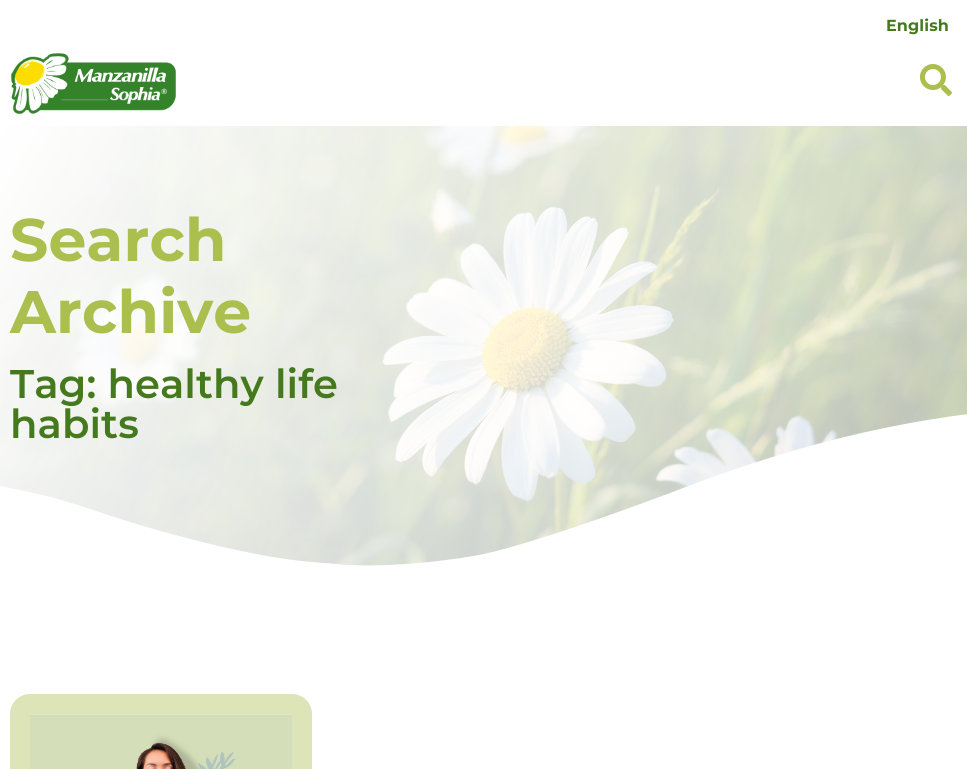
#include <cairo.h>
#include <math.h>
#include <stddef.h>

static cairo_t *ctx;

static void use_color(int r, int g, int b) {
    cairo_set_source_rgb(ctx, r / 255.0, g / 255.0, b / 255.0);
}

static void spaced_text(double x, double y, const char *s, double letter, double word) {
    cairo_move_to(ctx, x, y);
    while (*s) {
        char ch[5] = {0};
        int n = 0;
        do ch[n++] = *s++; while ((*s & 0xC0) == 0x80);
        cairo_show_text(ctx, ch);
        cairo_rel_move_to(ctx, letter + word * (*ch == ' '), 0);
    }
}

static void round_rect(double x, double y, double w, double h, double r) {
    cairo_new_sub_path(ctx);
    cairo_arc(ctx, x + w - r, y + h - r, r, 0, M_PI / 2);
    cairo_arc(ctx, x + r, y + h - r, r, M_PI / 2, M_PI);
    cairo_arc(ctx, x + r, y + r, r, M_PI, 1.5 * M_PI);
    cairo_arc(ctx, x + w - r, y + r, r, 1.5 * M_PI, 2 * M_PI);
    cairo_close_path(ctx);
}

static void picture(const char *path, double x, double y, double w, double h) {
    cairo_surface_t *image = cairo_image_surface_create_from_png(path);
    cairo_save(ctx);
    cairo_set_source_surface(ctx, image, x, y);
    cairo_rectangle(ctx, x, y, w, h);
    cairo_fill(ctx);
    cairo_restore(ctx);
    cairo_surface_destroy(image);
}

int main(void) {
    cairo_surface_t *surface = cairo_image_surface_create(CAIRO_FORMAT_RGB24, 967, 769);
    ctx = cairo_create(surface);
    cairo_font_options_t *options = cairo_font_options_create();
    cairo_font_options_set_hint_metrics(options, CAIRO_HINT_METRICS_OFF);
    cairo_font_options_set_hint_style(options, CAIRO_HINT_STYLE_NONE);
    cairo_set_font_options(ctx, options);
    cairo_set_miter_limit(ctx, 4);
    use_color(255, 255, 255);
    cairo_paint(ctx);
    cairo_select_font_face(ctx, "Montserrat", CAIRO_FONT_SLANT_NORMAL, CAIRO_FONT_WEIGHT_BOLD);
    cairo_set_font_size(ctx, 16);
    use_color(69, 121, 30);
    spaced_text(886, 31, "English", 0.1, 0);
    picture("img1.png", 10, 53, 166, 61);
    picture("img2.png", 920, 64, 32, 32);
    picture("img3.png", 0, 126, 967, 440);
    cairo_set_font_size(ctx, 60);
    use_color(170, 191, 77);
    spaced_text(10, 261, "Search", 0.1, 0);
    spaced_text(10, 333, "Archive", 0.1, 0);
    cairo_select_font_face(ctx, "Montserrat SemiBold", CAIRO_FONT_SLANT_NORMAL, CAIRO_FONT_WEIGHT_NORMAL);
    cairo_set_font_size(ctx, 40);
    use_color(69, 121, 30);
    spaced_text(10, 398, "Tag: healthy life", 0.1, 0);
    use_color(255, 255, 255);
    cairo_new_path(ctx);
    cairo_move_to(ctx, 336, 564);
    cairo_curve_to(ctx, 379, 568, 434, 563, 479, 555);
    cairo_curve_to(ctx, 524, 546, 614, 514, 670, 493);
    cairo_curve_to(ctx, 813, 437, 923, 416, 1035, 407);
    cairo_curve_to(ctx, 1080, 403, 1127, 401, 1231, 411);
    cairo_curve_to(ctx, 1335, 422, 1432, 456, 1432, 456);
    cairo_line_to(ctx, 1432, 575);
    cairo_line_to(ctx, -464, 575);
    cairo_line_to(ctx, -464, 523);
    cairo_curve_to(ctx, -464, 523, -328, 466, -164, 470);
    cairo_curve_to(ctx, -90, 471, 12, 482, 90, 509);
    cairo_curve_to(ctx, 130, 523, 189, 540, 241, 551);
    cairo_curve_to(ctx, 293, 562, 316, 562, 336, 564);
    cairo_close_path(ctx);
    cairo_fill(ctx);
    use_color(69, 121, 30);
    spaced_text(10, 438, "habits", 0.1, 0);
    use_color(221, 229, 184);
    round_rect(10, 694, 302, 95, 20);
    cairo_fill(ctx);
    picture("img4.png", 30, 714, 262, 55);
    cairo_surface_write_to_png(surface, "result.png");
    cairo_font_options_destroy(options);
    cairo_destroy(ctx);
    cairo_surface_destroy(surface);
    return 0;
}
